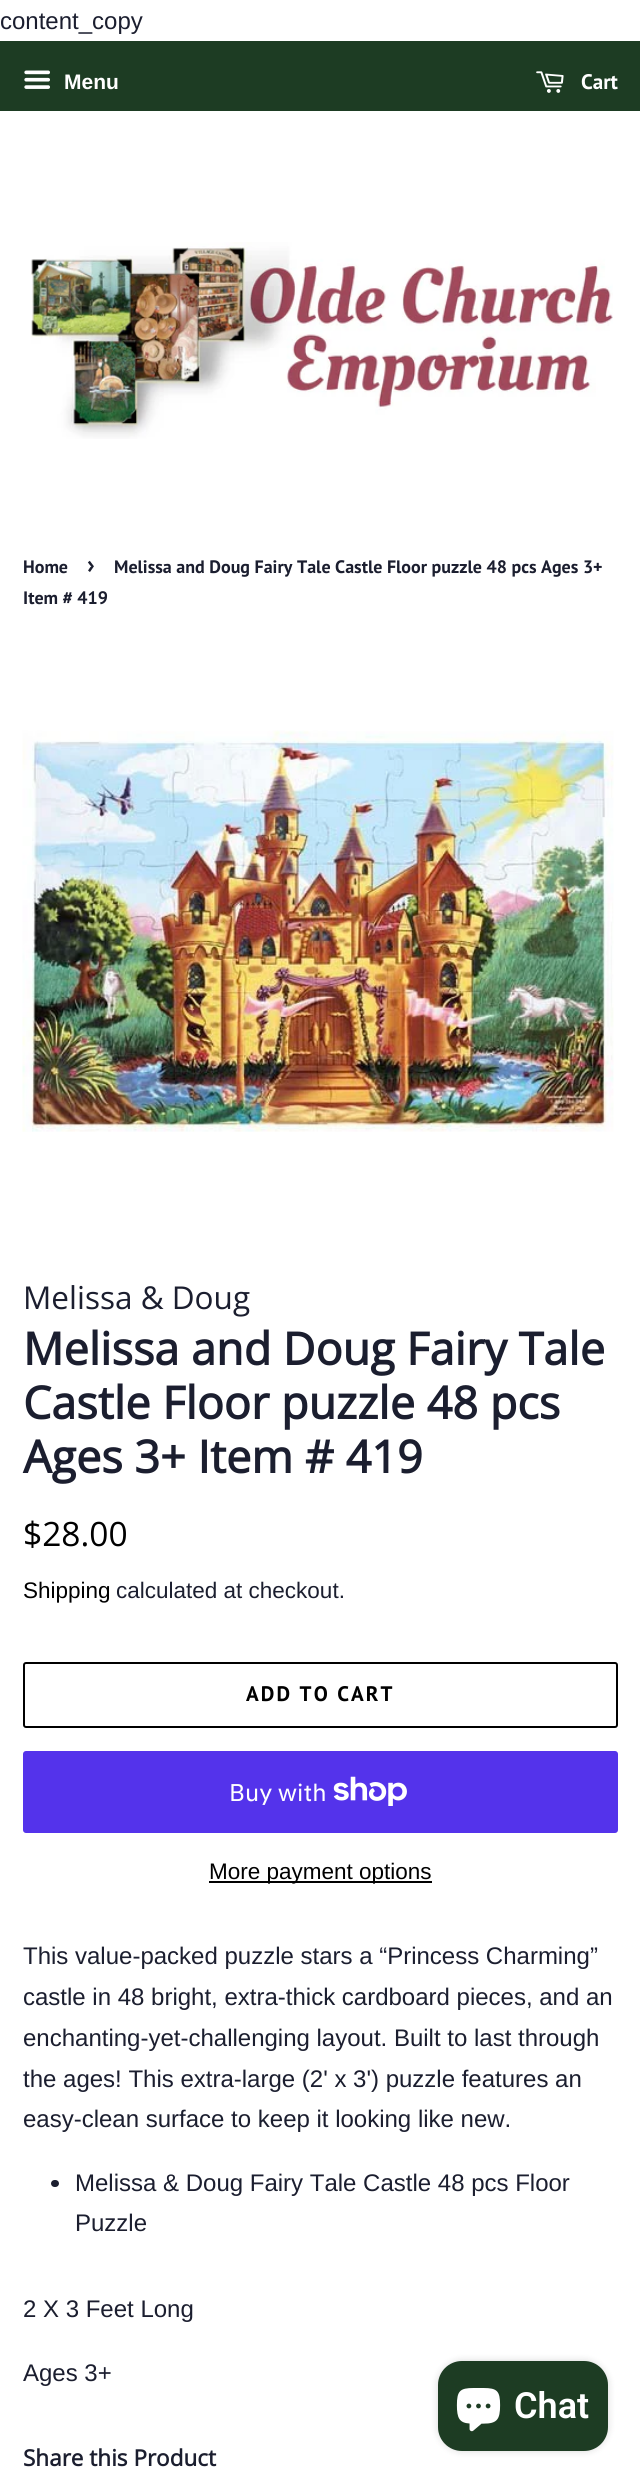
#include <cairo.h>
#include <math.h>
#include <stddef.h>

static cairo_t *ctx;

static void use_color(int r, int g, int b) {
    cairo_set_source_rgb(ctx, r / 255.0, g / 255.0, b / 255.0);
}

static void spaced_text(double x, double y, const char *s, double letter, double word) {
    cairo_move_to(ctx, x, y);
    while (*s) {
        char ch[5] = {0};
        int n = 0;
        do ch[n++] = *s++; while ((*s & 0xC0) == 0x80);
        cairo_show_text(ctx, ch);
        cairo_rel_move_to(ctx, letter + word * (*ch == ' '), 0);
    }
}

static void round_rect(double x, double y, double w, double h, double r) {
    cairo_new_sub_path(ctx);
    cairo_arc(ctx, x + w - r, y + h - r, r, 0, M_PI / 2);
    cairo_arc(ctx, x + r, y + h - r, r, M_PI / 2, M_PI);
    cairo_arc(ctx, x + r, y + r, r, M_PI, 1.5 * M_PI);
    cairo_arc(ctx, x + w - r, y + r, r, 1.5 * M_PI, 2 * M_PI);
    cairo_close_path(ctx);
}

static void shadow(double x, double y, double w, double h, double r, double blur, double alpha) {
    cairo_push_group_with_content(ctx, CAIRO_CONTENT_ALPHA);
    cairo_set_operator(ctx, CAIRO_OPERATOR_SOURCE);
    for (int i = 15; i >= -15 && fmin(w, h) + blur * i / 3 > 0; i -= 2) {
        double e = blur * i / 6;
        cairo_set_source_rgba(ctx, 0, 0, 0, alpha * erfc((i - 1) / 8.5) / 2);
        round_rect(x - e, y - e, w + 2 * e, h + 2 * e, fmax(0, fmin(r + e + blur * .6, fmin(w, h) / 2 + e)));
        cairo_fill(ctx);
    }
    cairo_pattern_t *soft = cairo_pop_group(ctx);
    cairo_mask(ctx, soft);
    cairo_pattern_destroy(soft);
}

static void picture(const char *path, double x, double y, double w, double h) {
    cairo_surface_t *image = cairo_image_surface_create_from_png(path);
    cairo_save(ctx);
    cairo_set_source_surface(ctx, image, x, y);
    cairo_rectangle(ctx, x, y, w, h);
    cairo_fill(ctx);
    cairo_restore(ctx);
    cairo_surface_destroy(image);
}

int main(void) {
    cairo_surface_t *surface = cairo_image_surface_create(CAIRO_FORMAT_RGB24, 640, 2482);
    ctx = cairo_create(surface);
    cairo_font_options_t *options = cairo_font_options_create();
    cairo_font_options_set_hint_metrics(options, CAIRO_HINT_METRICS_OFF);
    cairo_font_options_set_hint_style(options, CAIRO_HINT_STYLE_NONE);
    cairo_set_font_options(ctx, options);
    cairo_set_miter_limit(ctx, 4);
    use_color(255, 255, 255);
    cairo_paint(ctx);
    cairo_select_font_face(ctx, "Liberation Sans", CAIRO_FONT_SLANT_NORMAL, CAIRO_FONT_WEIGHT_NORMAL);
    cairo_set_font_size(ctx, 24);
    use_color(27, 30, 47);
    cairo_move_to(ctx, 0, 29);
    cairo_show_text(ctx, "content_copy");
    use_color(29, 60, 35);
    cairo_rectangle(ctx, 0, 41, 640, 70);
    cairo_fill(ctx);
    picture("img1.png", 24, 70, 26, 19);
    cairo_select_font_face(ctx, "Liberation Sans", CAIRO_FONT_SLANT_NORMAL, CAIRO_FONT_WEIGHT_BOLD);
    cairo_set_font_size(ctx, 21);
    use_color(255, 255, 255);
    cairo_move_to(ctx, 64, 89);
    cairo_show_text(ctx, "Menu");
    picture("img2.png", 536, 71, 28, 22);
    cairo_select_font_face(ctx, "PT Sans", CAIRO_FONT_SLANT_NORMAL, CAIRO_FONT_WEIGHT_BOLD);
    cairo_move_to(ctx, 581, 89);
    cairo_show_text(ctx, "Cart");
    picture("img3.png", 31, 242, 582, 197);
    cairo_set_font_size(ctx, 18);
    use_color(27, 30, 47);
    cairo_move_to(ctx, 23, 573);
    cairo_show_text(ctx, "Home");
    cairo_set_font_size(ctx, 25);
    cairo_move_to(ctx, 87, 573);
    cairo_show_text(ctx, "›");
    cairo_set_font_size(ctx, 18);
    cairo_move_to(ctx, 114, 573);
    cairo_show_text(ctx, "Melissa and Doug Fairy Tale Castle Floor puzzle 48 pcs Ages 3+");
    cairo_move_to(ctx, 23, 604);
    cairo_show_text(ctx, "Item # 419");
    picture("img4.png", 22, 730, 592, 402);
    cairo_select_font_face(ctx, "Open Sans", CAIRO_FONT_SLANT_NORMAL, CAIRO_FONT_WEIGHT_NORMAL);
    cairo_set_font_size(ctx, 31.5);
    cairo_move_to(ctx, 23, 1309);
    cairo_show_text(ctx, "Melissa & Doug");
    cairo_select_font_face(ctx, "Open Sans", CAIRO_FONT_SLANT_NORMAL, CAIRO_FONT_WEIGHT_BOLD);
    cairo_set_font_size(ctx, 45);
    cairo_move_to(ctx, 23, 1365);
    cairo_show_text(ctx, "Melissa and Doug Fairy Tale");
    cairo_move_to(ctx, 23, 1419);
    cairo_show_text(ctx, "Castle Floor puzzle 48 pcs");
    cairo_move_to(ctx, 23, 1473);
    cairo_show_text(ctx, "Ages 3+ Item # 419");
    cairo_select_font_face(ctx, "Open Sans", CAIRO_FONT_SLANT_NORMAL, CAIRO_FONT_WEIGHT_NORMAL);
    cairo_set_font_size(ctx, 33.5);
    use_color(0, 0, 0);
    cairo_move_to(ctx, 23, 1546);
    cairo_show_text(ctx, "$28.00");
    cairo_select_font_face(ctx, "Liberation Sans", CAIRO_FONT_SLANT_NORMAL, CAIRO_FONT_WEIGHT_NORMAL);
    cairo_set_font_size(ctx, 22.5);
    cairo_move_to(ctx, 23, 1598);
    cairo_show_text(ctx, "Shipping");
    use_color(27, 30, 47);
    cairo_move_to(ctx, 116, 1598);
    cairo_show_text(ctx, "calculated at checkout.");
    round_rect(24, 1663, 593, 64, 2);
    use_color(0, 0, 0);
    cairo_stroke(ctx);
    cairo_select_font_face(ctx, "PT Sans", CAIRO_FONT_SLANT_NORMAL, CAIRO_FONT_WEIGHT_BOLD);
    cairo_set_font_size(ctx, 21);
    spaced_text(246, 1701, "ADD TO CART", 2.1, 0);
    use_color(84, 51, 235);
    round_rect(23, 1751, 595, 82, 3);
    cairo_fill(ctx);
    cairo_select_font_face(ctx, "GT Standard", CAIRO_FONT_SLANT_NORMAL, CAIRO_FONT_WEIGHT_NORMAL);
    cairo_set_font_size(ctx, 24);
    use_color(255, 255, 255);
    cairo_move_to(ctx, 229, 1801);
    cairo_show_text(ctx, "Buy with");
    picture("img5.png", 333, 1776, 74, 30);
    use_color(0, 0, 0);
    cairo_rectangle(ctx, 209, 1881, 223, 2);
    cairo_fill(ctx);
    cairo_select_font_face(ctx, "Liberation Sans", CAIRO_FONT_SLANT_NORMAL, CAIRO_FONT_WEIGHT_NORMAL);
    cairo_set_font_size(ctx, 22.5);
    cairo_move_to(ctx, 209, 1879);
    cairo_show_text(ctx, "More payment options");
    cairo_set_font_size(ctx, 24);
    use_color(27, 30, 47);
    cairo_move_to(ctx, 23, 1964);
    cairo_show_text(ctx, "This value-packed puzzle stars a “Princess Charming”");
    cairo_move_to(ctx, 23, 2005);
    cairo_show_text(ctx, "castle in 48 bright, extra-thick cardboard pieces, and an");
    cairo_move_to(ctx, 23, 2046);
    cairo_show_text(ctx, "enchanting-yet-challenging layout. Built to last through");
    cairo_move_to(ctx, 23, 2087);
    cairo_show_text(ctx, "the ages! This extra-large (2' x 3') puzzle features an");
    cairo_move_to(ctx, 23, 2127);
    cairo_show_text(ctx, "easy-clean surface to keep it looking like new.");
    round_rect(51, 2180, 8, 7, 3.5);
    cairo_fill(ctx);
    cairo_move_to(ctx, 75, 2191);
    cairo_show_text(ctx, "Melissa & Doug Fairy Tale Castle 48 pcs Floor");
    cairo_move_to(ctx, 75, 2231);
    cairo_show_text(ctx, "Puzzle");
    cairo_move_to(ctx, 23, 2317);
    cairo_show_text(ctx, "2 X 3 Feet Long");
    cairo_move_to(ctx, 23, 2381);
    cairo_show_text(ctx, "Ages 3+");
    cairo_select_font_face(ctx, "Open Sans", CAIRO_FONT_SLANT_NORMAL, CAIRO_FONT_WEIGHT_BOLD);
    cairo_set_font_size(ctx, 22.5);
    cairo_move_to(ctx, 23, 2466);
    cairo_show_text(ctx, "Share this Product");
    use_color(0, 0, 0);
    shadow(438, 2361, 170, 90, 24, 4, 0.15);
    use_color(29, 60, 35);
    round_rect(438, 2361, 170, 90, 24);
    cairo_fill(ctx);
    picture("img6.png", 456, 2388, 45, 44);
    cairo_select_font_face(ctx, "Roboto SemiBold", CAIRO_FONT_SLANT_NORMAL, CAIRO_FONT_WEIGHT_NORMAL);
    cairo_set_font_size(ctx, 36);
    use_color(255, 255, 255);
    cairo_move_to(ctx, 514, 2418);
    cairo_show_text(ctx, "Chat");
    cairo_surface_write_to_png(surface, "result.png");
    cairo_font_options_destroy(options);
    cairo_destroy(ctx);
    cairo_surface_destroy(surface);
    return 0;
}
